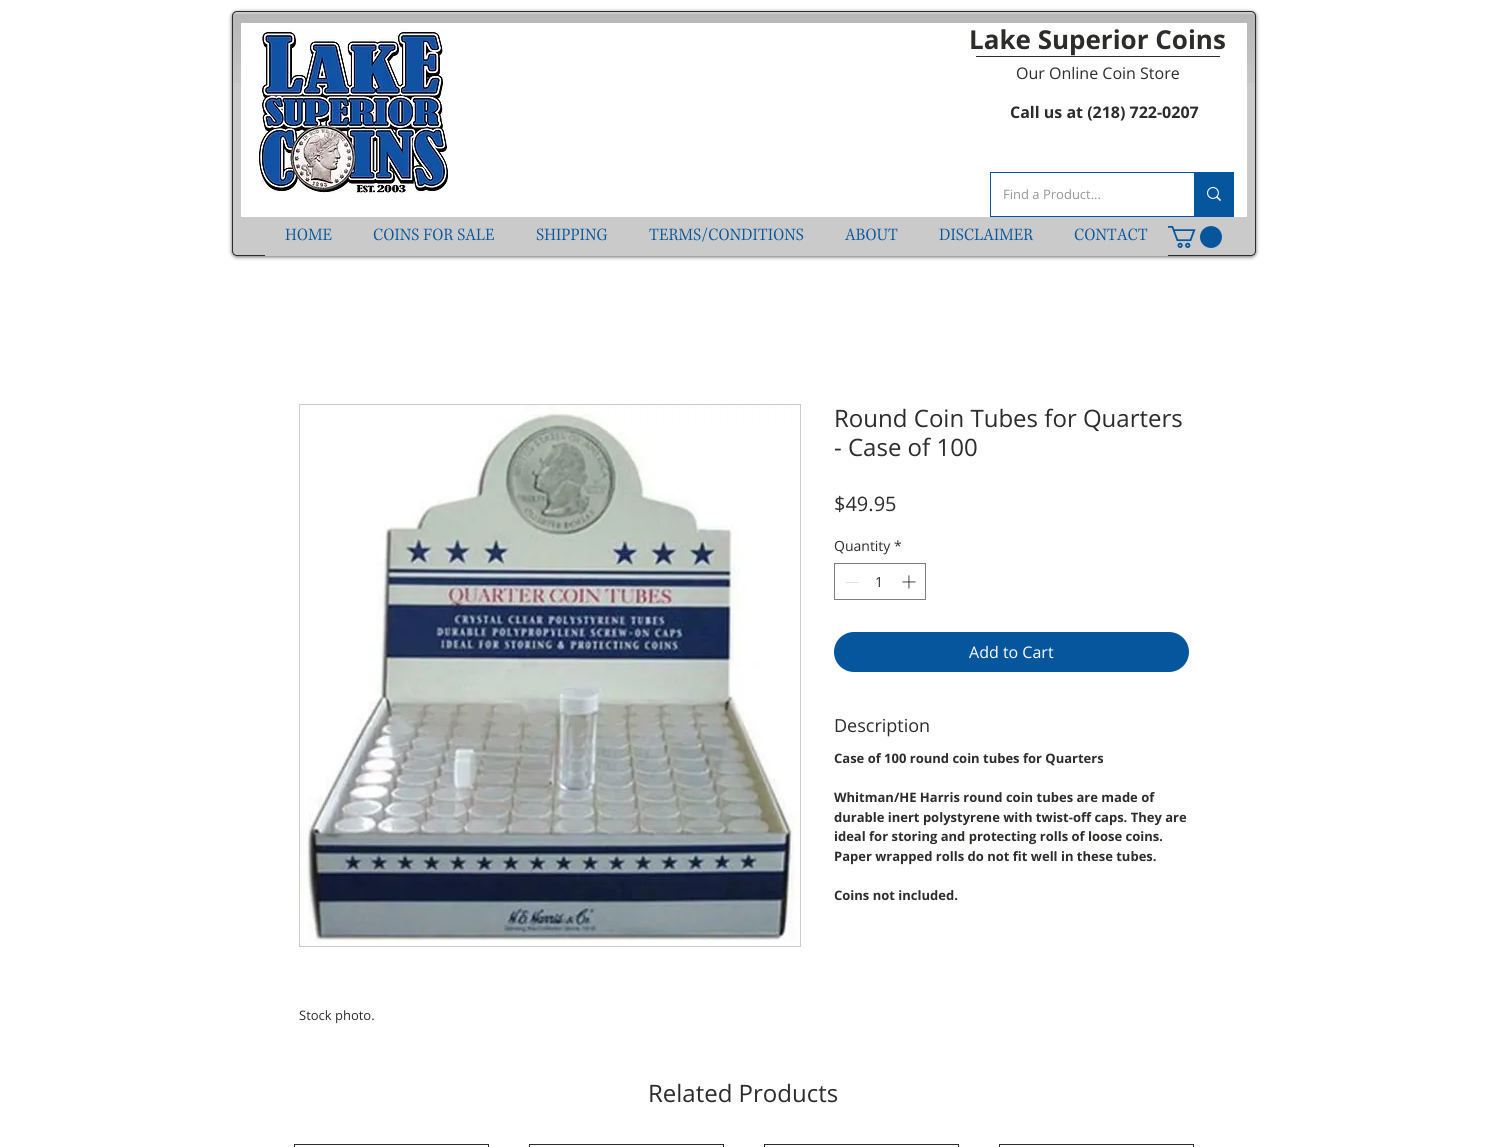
#include <cairo.h>
#include <math.h>
#include <stddef.h>

static cairo_t *ctx;

static void use_color(int r, int g, int b) {
    cairo_set_source_rgb(ctx, r / 255.0, g / 255.0, b / 255.0);
}

static void round_rect(double x, double y, double w, double h, double r) {
    cairo_new_sub_path(ctx);
    cairo_arc(ctx, x + w - r, y + h - r, r, 0, M_PI / 2);
    cairo_arc(ctx, x + r, y + h - r, r, M_PI / 2, M_PI);
    cairo_arc(ctx, x + r, y + r, r, M_PI, 1.5 * M_PI);
    cairo_arc(ctx, x + w - r, y + r, r, 1.5 * M_PI, 2 * M_PI);
    cairo_close_path(ctx);
}

static void shadow(double x, double y, double w, double h, double r, double blur, double alpha) {
    cairo_push_group_with_content(ctx, CAIRO_CONTENT_ALPHA);
    cairo_set_operator(ctx, CAIRO_OPERATOR_SOURCE);
    for (int i = 15; i >= -15 && fmin(w, h) + blur * i / 3 > 0; i -= 2) {
        double e = blur * i / 6;
        cairo_set_source_rgba(ctx, 0, 0, 0, alpha * erfc((i - 1) / 8.5) / 2);
        round_rect(x - e, y - e, w + 2 * e, h + 2 * e, fmax(0, fmin(r + e + blur * .6, fmin(w, h) / 2 + e)));
        cairo_fill(ctx);
    }
    cairo_pattern_t *soft = cairo_pop_group(ctx);
    cairo_mask(ctx, soft);
    cairo_pattern_destroy(soft);
}

static void picture(const char *path, double x, double y, double w, double h) {
    cairo_surface_t *image = cairo_image_surface_create_from_png(path);
    cairo_save(ctx);
    cairo_set_source_surface(ctx, image, x, y);
    cairo_rectangle(ctx, x, y, w, h);
    cairo_fill(ctx);
    cairo_restore(ctx);
    cairo_surface_destroy(image);
}

int main(void) {
    cairo_surface_t *surface = cairo_image_surface_create(CAIRO_FORMAT_RGB24, 1487, 1147);
    ctx = cairo_create(surface);
    cairo_font_options_t *options = cairo_font_options_create();
    cairo_font_options_set_hint_metrics(options, CAIRO_HINT_METRICS_OFF);
    cairo_font_options_set_hint_style(options, CAIRO_HINT_STYLE_NONE);
    cairo_set_font_options(ctx, options);
    cairo_set_miter_limit(ctx, 4);
    use_color(255, 255, 255);
    cairo_paint(ctx);
    use_color(0, 0, 0);
    shadow(232, 12, 1024, 245, 5, 2, 0.6);
    use_color(202, 202, 202);
    round_rect(232, 11, 1024, 245, 5);
    cairo_fill(ctx);
    picture("img1.png", 232, 14, 1024, 69);
    round_rect(232.5, 11.5, 1023, 244, 4.5);
    use_color(44, 44, 43);
    cairo_set_line_width(ctx, 1);
    cairo_stroke(ctx);
    use_color(255, 255, 255);
    cairo_rectangle(ctx, 241, 23, 1006, 194);
    cairo_fill(ctx);
    picture("img2.png", 256, 29, 192, 164);
    cairo_select_font_face(ctx, "Open Sans", CAIRO_FONT_SLANT_NORMAL, CAIRO_FONT_WEIGHT_BOLD);
    cairo_set_font_size(ctx, 26);
    use_color(44, 44, 43);
    cairo_move_to(ctx, 969, 49);
    cairo_show_text(ctx, "Lake Superior Coins");
    cairo_rectangle(ctx, 976, 56, 244, 1);
    cairo_fill(ctx);
    cairo_select_font_face(ctx, "Open Sans", CAIRO_FONT_SLANT_NORMAL, CAIRO_FONT_WEIGHT_NORMAL);
    cairo_set_font_size(ctx, 16);
    cairo_move_to(ctx, 1016, 79);
    cairo_show_text(ctx, "Our Online Coin Store");
    cairo_select_font_face(ctx, "Open Sans", CAIRO_FONT_SLANT_NORMAL, CAIRO_FONT_WEIGHT_BOLD);
    cairo_move_to(ctx, 1010, 118);
    cairo_show_text(ctx, "Call us at (218) 722-0207");
    cairo_rectangle(ctx, 990.5, 172.5, 243, 44);
    use_color(5, 86, 156);
    cairo_stroke(ctx);
    cairo_select_font_face(ctx, "Open Sans", CAIRO_FONT_SLANT_NORMAL, CAIRO_FONT_WEIGHT_NORMAL);
    cairo_set_font_size(ctx, 13);
    use_color(150, 150, 149);
    cairo_move_to(ctx, 1003, 199);
    cairo_show_text(ctx, "Find a Product...");
    use_color(5, 86, 156);
    cairo_rectangle(ctx, 1194, 173, 39, 43);
    cairo_fill(ctx);
    picture("img3.png", 1207, 187, 14, 14);
    use_color(202, 202, 202);
    cairo_rectangle(ctx, 265, 255, 903, 1);
    cairo_fill(ctx);
    picture("img4.png", 285, 228, 47, 13);
    picture("img5.png", 373, 228, 121, 13);
    picture("img6.png", 536, 228, 72, 13);
    picture("img7.png", 649, 227, 155, 15);
    picture("img8.png", 844, 228, 54, 13);
    picture("img9.png", 939, 228, 95, 13);
    picture("img10.png", 1074, 228, 74, 13);
    picture("img11.png", 1168, 226, 54, 22);
    cairo_set_font_size(ctx, 24);
    use_color(44, 44, 43);
    cairo_move_to(ctx, 834, 427);
    cairo_show_text(ctx, "Round Coin Tubes for Quarters");
    cairo_move_to(ctx, 834, 456);
    cairo_show_text(ctx, "- Case of 100");
    cairo_set_font_size(ctx, 20);
    cairo_move_to(ctx, 834, 511);
    cairo_show_text(ctx, "$49.95");
    cairo_set_font_size(ctx, 14);
    cairo_move_to(ctx, 834, 551);
    cairo_show_text(ctx, "Quantity");
    cairo_move_to(ctx, 894, 551);
    cairo_show_text(ctx, "*");
    cairo_rectangle(ctx, 834.5, 563.5, 91, 36);
    use_color(128, 128, 128);
    cairo_stroke(ctx);
    use_color(227, 227, 227);
    cairo_rectangle(ctx, 846, 582, 13, 1);
    cairo_fill(ctx);
    use_color(44, 44, 43);
    cairo_move_to(ctx, 875, 587);
    cairo_show_text(ctx, "1");
    picture("img12.png", 902, 575, 14, 14);
    use_color(5, 86, 156);
    round_rect(834, 632, 355, 40, 20);
    cairo_fill(ctx);
    cairo_set_font_size(ctx, 16);
    use_color(255, 255, 255);
    cairo_move_to(ctx, 969, 658);
    cairo_show_text(ctx, "Add to Cart");
    cairo_set_font_size(ctx, 18);
    use_color(44, 44, 43);
    cairo_move_to(ctx, 834, 732);
    cairo_show_text(ctx, "Description");
    cairo_select_font_face(ctx, "Open Sans", CAIRO_FONT_SLANT_NORMAL, CAIRO_FONT_WEIGHT_BOLD);
    cairo_set_font_size(ctx, 13);
    cairo_move_to(ctx, 834, 763);
    cairo_show_text(ctx, "Case of 100 round coin tubes for Quarters");
    cairo_move_to(ctx, 834, 802);
    cairo_show_text(ctx, "Whitman/HE Harris round coin tubes are made of");
    cairo_move_to(ctx, 834, 822);
    cairo_show_text(ctx, "durable inert polystyrene with twist-off caps. They are");
    cairo_move_to(ctx, 834, 841);
    cairo_show_text(ctx, "ideal for storing and protecting rolls of loose coins.");
    cairo_move_to(ctx, 834, 861);
    cairo_show_text(ctx, "Paper wrapped rolls do not fit well in these tubes.");
    cairo_move_to(ctx, 834, 900);
    cairo_show_text(ctx, "Coins not included.");
    cairo_rectangle(ctx, 299.5, 404.5, 501, 542);
    use_color(202, 202, 202);
    cairo_stroke(ctx);
    picture("img13.png", 300, 405, 500, 541);
    cairo_select_font_face(ctx, "Open Sans", CAIRO_FONT_SLANT_NORMAL, CAIRO_FONT_WEIGHT_NORMAL);
    use_color(44, 44, 43);
    cairo_move_to(ctx, 299, 1020);
    cairo_show_text(ctx, "Stock photo.");
    cairo_set_font_size(ctx, 24);
    cairo_move_to(ctx, 648, 1102);
    cairo_show_text(ctx, "Related Products");
    cairo_rectangle(ctx, 294.5, 1144.5, 194, 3);
    cairo_stroke(ctx);
    cairo_rectangle(ctx, 529.5, 1144.5, 194, 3);
    cairo_stroke(ctx);
    cairo_rectangle(ctx, 764.5, 1144.5, 194, 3);
    cairo_stroke(ctx);
    cairo_rectangle(ctx, 999.5, 1144.5, 194, 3);
    cairo_stroke(ctx);
    cairo_surface_write_to_png(surface, "result.png");
    cairo_font_options_destroy(options);
    cairo_destroy(ctx);
    cairo_surface_destroy(surface);
    return 0;
}
